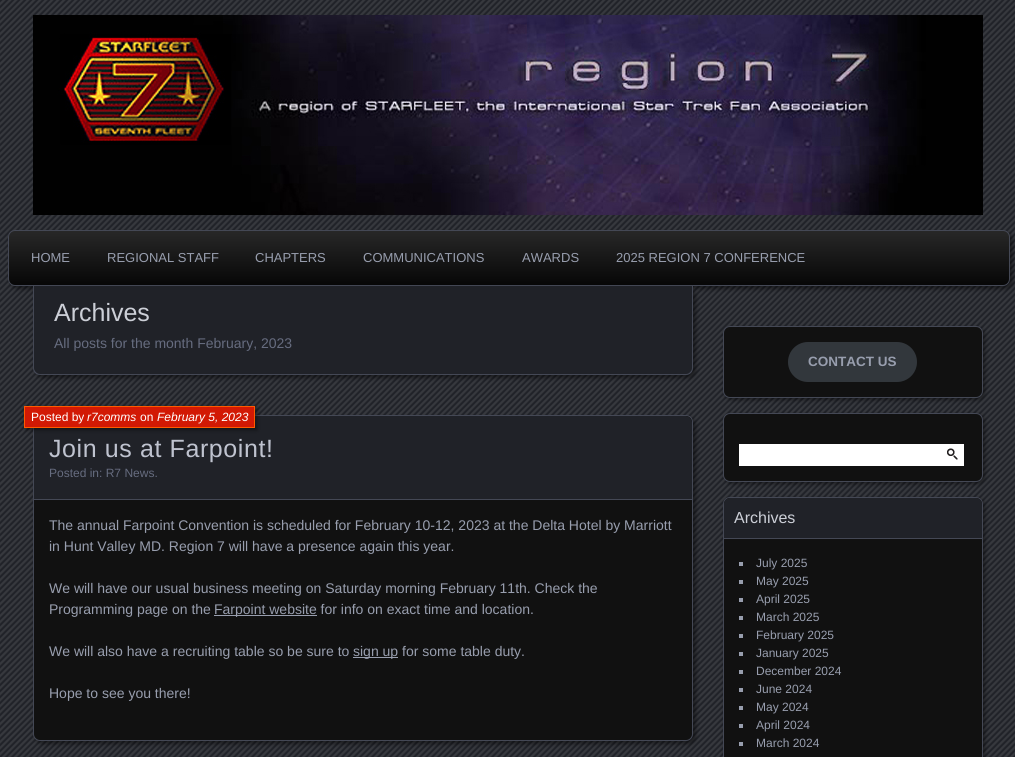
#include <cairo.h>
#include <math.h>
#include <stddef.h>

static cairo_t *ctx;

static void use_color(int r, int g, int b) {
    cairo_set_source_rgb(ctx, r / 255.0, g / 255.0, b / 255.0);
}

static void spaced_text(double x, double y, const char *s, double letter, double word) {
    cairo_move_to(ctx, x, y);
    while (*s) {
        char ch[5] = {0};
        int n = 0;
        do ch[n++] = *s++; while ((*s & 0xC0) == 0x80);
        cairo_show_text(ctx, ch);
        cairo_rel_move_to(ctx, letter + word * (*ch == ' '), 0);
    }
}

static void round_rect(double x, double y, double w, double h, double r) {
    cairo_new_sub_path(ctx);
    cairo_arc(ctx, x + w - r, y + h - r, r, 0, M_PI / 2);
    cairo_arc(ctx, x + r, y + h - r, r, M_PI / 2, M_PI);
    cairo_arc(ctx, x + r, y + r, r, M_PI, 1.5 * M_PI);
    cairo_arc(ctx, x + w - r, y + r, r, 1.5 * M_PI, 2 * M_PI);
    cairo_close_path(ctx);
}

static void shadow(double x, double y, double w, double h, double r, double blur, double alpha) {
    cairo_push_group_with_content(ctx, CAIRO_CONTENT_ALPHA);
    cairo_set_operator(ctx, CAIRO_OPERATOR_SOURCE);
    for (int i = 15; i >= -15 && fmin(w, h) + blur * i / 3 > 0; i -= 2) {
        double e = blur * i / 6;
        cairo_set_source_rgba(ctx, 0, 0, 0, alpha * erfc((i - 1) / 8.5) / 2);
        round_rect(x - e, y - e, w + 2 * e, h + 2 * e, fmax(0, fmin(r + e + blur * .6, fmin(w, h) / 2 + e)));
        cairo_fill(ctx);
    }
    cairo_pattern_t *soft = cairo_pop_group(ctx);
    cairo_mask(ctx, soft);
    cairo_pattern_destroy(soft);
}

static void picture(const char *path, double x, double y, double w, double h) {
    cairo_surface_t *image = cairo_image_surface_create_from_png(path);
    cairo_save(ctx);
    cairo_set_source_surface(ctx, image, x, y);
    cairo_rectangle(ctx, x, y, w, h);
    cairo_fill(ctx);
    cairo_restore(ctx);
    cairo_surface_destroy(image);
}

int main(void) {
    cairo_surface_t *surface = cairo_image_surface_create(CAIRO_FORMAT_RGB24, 1015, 757);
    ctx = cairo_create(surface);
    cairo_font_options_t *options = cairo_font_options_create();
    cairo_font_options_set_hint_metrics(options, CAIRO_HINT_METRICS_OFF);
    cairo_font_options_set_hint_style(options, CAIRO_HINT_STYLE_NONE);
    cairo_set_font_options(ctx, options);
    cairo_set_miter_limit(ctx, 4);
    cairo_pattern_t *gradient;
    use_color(32, 34, 40);
    cairo_paint(ctx);
    picture("img1.png", 0, 0, 1015, 757);
    picture("img2.png", 33, 15, 950, 200);
    use_color(0, 0, 0);
    shadow(11, 233, 1002, 56, 7, 2, 0.45);
    cairo_save(ctx);
    round_rect(8, 230, 1002, 56, 7);
    cairo_clip(ctx);
    gradient = cairo_pattern_create_linear(509, 231, 509, 285);
    cairo_pattern_add_color_stop_rgba(gradient, 0.01, 0.153, 0.153, 0.153, 1);
    cairo_pattern_add_color_stop_rgba(gradient, 1, 0.027, 0.027, 0.027, 1);
    cairo_set_source(ctx, gradient);
    cairo_pattern_destroy(gradient);
    cairo_rectangle(ctx, 8, 231, 1002, 54);
    cairo_fill(ctx);
    cairo_restore(ctx);
    round_rect(8.5, 230.5, 1001, 55, 6.5);
    use_color(68, 72, 85);
    cairo_set_line_width(ctx, 1);
    cairo_stroke(ctx);
    cairo_select_font_face(ctx, "Liberation Sans", CAIRO_FONT_SLANT_NORMAL, CAIRO_FONT_WEIGHT_NORMAL);
    cairo_set_font_size(ctx, 13);
    use_color(152, 158, 174);
    cairo_move_to(ctx, 31, 262);
    cairo_show_text(ctx, "HOME");
    cairo_move_to(ctx, 107, 262);
    cairo_show_text(ctx, "REGIONAL STAFF");
    cairo_move_to(ctx, 255, 262);
    cairo_show_text(ctx, "CHAPTERS");
    cairo_move_to(ctx, 363, 262);
    cairo_show_text(ctx, "COMMUNICATIONS");
    cairo_move_to(ctx, 522, 262);
    cairo_show_text(ctx, "AWARDS");
    cairo_move_to(ctx, 616, 262);
    cairo_show_text(ctx, "2025 REGION 7 CONFERENCE");
    use_color(0, 0, 0);
    shadow(36, 289, 660, 89, 7, 2, 0.45);
    use_color(32, 34, 40);
    cairo_new_path(ctx);
    cairo_move_to(ctx, 34, 286);
    cairo_line_to(ctx, 692, 286);
    cairo_line_to(ctx, 692, 368);
    cairo_curve_to(ctx, 692, 371.5, 689.5, 374, 686, 374);
    cairo_line_to(ctx, 40, 374);
    cairo_curve_to(ctx, 36.5, 374, 34, 371.5, 34, 368);
    cairo_close_path(ctx);
    cairo_fill(ctx);
    use_color(68, 72, 85);
    cairo_set_fill_rule(ctx, CAIRO_FILL_RULE_EVEN_ODD);
    cairo_new_path(ctx);
    cairo_move_to(ctx, 33, 286);
    cairo_line_to(ctx, 693, 286);
    cairo_line_to(ctx, 693, 368);
    cairo_curve_to(ctx, 693, 372, 690, 375, 686, 375);
    cairo_line_to(ctx, 40, 375);
    cairo_curve_to(ctx, 36, 375, 33, 372, 33, 368);
    cairo_close_path(ctx);
    cairo_move_to(ctx, 34, 286);
    cairo_line_to(ctx, 692, 286);
    cairo_line_to(ctx, 692, 368);
    cairo_curve_to(ctx, 692, 371, 689, 374, 686, 374);
    cairo_line_to(ctx, 40, 374);
    cairo_curve_to(ctx, 37, 374, 34, 371, 34, 368);
    cairo_close_path(ctx);
    cairo_fill(ctx);
    cairo_set_font_size(ctx, 25);
    use_color(204, 207, 215);
    cairo_move_to(ctx, 54, 321);
    cairo_show_text(ctx, "Archives");
    cairo_set_font_size(ctx, 14);
    use_color(102, 108, 127);
    cairo_move_to(ctx, 54, 348);
    cairo_show_text(ctx, "All posts for the month February, 2023");
    use_color(0, 0, 0);
    shadow(36, 418, 660, 326, 7, 2, 0.45);
    use_color(17, 17, 17);
    round_rect(33.5, 415.5, 659, 325, 6.5);
    cairo_fill_preserve(ctx);
    use_color(68, 72, 85);
    cairo_stroke(ctx);
    use_color(32, 34, 40);
    cairo_new_path(ctx);
    cairo_move_to(ctx, 41, 416);
    cairo_line_to(ctx, 685, 416);
    cairo_curve_to(ctx, 689, 416, 692, 419, 692, 423);
    cairo_line_to(ctx, 692, 500);
    cairo_line_to(ctx, 34, 500);
    cairo_line_to(ctx, 34, 423);
    cairo_curve_to(ctx, 34, 419, 37, 416, 41, 416);
    cairo_close_path(ctx);
    cairo_fill(ctx);
    use_color(68, 72, 85);
    cairo_rectangle(ctx, 34, 499, 658, 1);
    cairo_fill(ctx);
    use_color(0, 0, 0);
    shadow(26, 408, 231, 22, 0, 2, 0.45);
    use_color(210, 25, 4);
    cairo_rectangle(ctx, 24.5, 406.5, 230, 21);
    cairo_fill_preserve(ctx);
    use_color(255, 90, 0);
    cairo_stroke(ctx);
    cairo_set_font_size(ctx, 12);
    use_color(255, 255, 255);
    cairo_move_to(ctx, 31, 421);
    cairo_show_text(ctx, "Posted by");
    cairo_select_font_face(ctx, "Liberation Sans", CAIRO_FONT_SLANT_ITALIC, CAIRO_FONT_WEIGHT_NORMAL);
    cairo_move_to(ctx, 87, 421);
    cairo_show_text(ctx, "r7comms");
    cairo_select_font_face(ctx, "Liberation Sans", CAIRO_FONT_SLANT_NORMAL, CAIRO_FONT_WEIGHT_NORMAL);
    cairo_move_to(ctx, 140, 421);
    cairo_show_text(ctx, "on");
    cairo_select_font_face(ctx, "Liberation Sans", CAIRO_FONT_SLANT_ITALIC, CAIRO_FONT_WEIGHT_NORMAL);
    cairo_move_to(ctx, 157, 421);
    cairo_show_text(ctx, "February 5, 2023");
    cairo_select_font_face(ctx, "Liberation Sans", CAIRO_FONT_SLANT_NORMAL, CAIRO_FONT_WEIGHT_NORMAL);
    cairo_set_font_size(ctx, 25);
    use_color(191, 195, 207);
    spaced_text(49, 457, "Join us at Farpoint!", 0.6, 0);
    cairo_set_font_size(ctx, 12);
    use_color(102, 108, 127);
    cairo_move_to(ctx, 49, 477);
    cairo_show_text(ctx, "Posted in: R7 News.");
    cairo_set_font_size(ctx, 14);
    use_color(152, 158, 174);
    cairo_move_to(ctx, 49, 530);
    cairo_show_text(ctx, "The annual Farpoint Convention is scheduled for February 10-12, 2023 at the Delta Hotel by Marriott");
    cairo_move_to(ctx, 49, 551);
    cairo_show_text(ctx, "in Hunt Valley MD. Region 7 will have a presence again this year.");
    cairo_move_to(ctx, 49, 593);
    cairo_show_text(ctx, "We will have our usual business meeting on Saturday morning February 11th. Check the");
    cairo_move_to(ctx, 49, 614);
    cairo_show_text(ctx, "Programming page on the");
    cairo_rectangle(ctx, 214, 615, 103, 1);
    cairo_fill(ctx);
    cairo_move_to(ctx, 214, 614);
    cairo_show_text(ctx, "Farpoint website for info on exact time and location.");
    cairo_move_to(ctx, 49, 656);
    cairo_show_text(ctx, "We will also have a recruiting table so be sure to");
    cairo_rectangle(ctx, 353, 657, 45, 1);
    cairo_fill(ctx);
    cairo_move_to(ctx, 353, 656);
    cairo_show_text(ctx, "sign up for some table duty.");
    cairo_move_to(ctx, 49, 698);
    cairo_show_text(ctx, "Hope to see you there!");
    use_color(0, 0, 0);
    shadow(725, 328, 260, 72, 7, 2, 0.45);
    use_color(17, 17, 17);
    round_rect(723.5, 326.5, 259, 71, 6.5);
    cairo_fill_preserve(ctx);
    use_color(68, 72, 85);
    cairo_stroke(ctx);
    use_color(50, 55, 60);
    round_rect(788, 342, 129, 40, 20);
    cairo_fill(ctx);
    cairo_select_font_face(ctx, "Liberation Sans", CAIRO_FONT_SLANT_NORMAL, CAIRO_FONT_WEIGHT_BOLD);
    cairo_set_font_size(ctx, 13.5);
    use_color(152, 158, 174);
    cairo_move_to(ctx, 808, 366);
    cairo_show_text(ctx, "CONTACT US");
    use_color(0, 0, 0);
    shadow(725, 415, 260, 69, 7, 2, 0.45);
    use_color(17, 17, 17);
    round_rect(723.5, 413.5, 259, 68, 6.5);
    cairo_fill_preserve(ctx);
    use_color(68, 72, 85);
    cairo_stroke(ctx);
    use_color(255, 255, 255);
    cairo_rectangle(ctx, 739, 444, 225, 22);
    cairo_fill(ctx);
    picture("img3.png", 947, 448, 11, 12);
    use_color(0, 0, 0);
    shadow(725, 499, 260, 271, 7, 2, 0.45);
    use_color(17, 17, 17);
    round_rect(723.5, 497.5, 259, 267, 6.5);
    cairo_fill_preserve(ctx);
    use_color(68, 72, 85);
    cairo_stroke(ctx);
    use_color(32, 34, 40);
    cairo_new_path(ctx);
    cairo_move_to(ctx, 730, 498);
    cairo_line_to(ctx, 976, 498);
    cairo_curve_to(ctx, 979.5, 498, 982, 500.5, 982, 504);
    cairo_line_to(ctx, 982, 539);
    cairo_line_to(ctx, 724, 539);
    cairo_line_to(ctx, 724, 504);
    cairo_curve_to(ctx, 724, 500.5, 726.5, 498, 730, 498);
    cairo_close_path(ctx);
    cairo_fill(ctx);
    use_color(68, 72, 85);
    cairo_rectangle(ctx, 724, 538, 258, 1);
    cairo_fill(ctx);
    cairo_select_font_face(ctx, "Liberation Sans", CAIRO_FONT_SLANT_NORMAL, CAIRO_FONT_WEIGHT_NORMAL);
    cairo_set_font_size(ctx, 16);
    use_color(204, 207, 215);
    cairo_move_to(ctx, 734, 523);
    cairo_show_text(ctx, "Archives");
    use_color(152, 158, 174);
    cairo_rectangle(ctx, 739, 562, 4, 4);
    cairo_fill(ctx);
    cairo_set_font_size(ctx, 12);
    cairo_move_to(ctx, 756, 567);
    cairo_show_text(ctx, "July 2025");
    cairo_rectangle(ctx, 739, 580, 4, 4);
    cairo_fill(ctx);
    cairo_move_to(ctx, 756, 585);
    cairo_show_text(ctx, "May 2025");
    cairo_rectangle(ctx, 739, 598, 4, 4);
    cairo_fill(ctx);
    cairo_move_to(ctx, 756, 603);
    cairo_show_text(ctx, "April 2025");
    cairo_rectangle(ctx, 739, 616, 4, 4);
    cairo_fill(ctx);
    cairo_move_to(ctx, 756, 621);
    cairo_show_text(ctx, "March 2025");
    cairo_rectangle(ctx, 739, 634, 4, 4);
    cairo_fill(ctx);
    cairo_move_to(ctx, 756, 639);
    cairo_show_text(ctx, "February 2025");
    cairo_rectangle(ctx, 739, 652, 4, 4);
    cairo_fill(ctx);
    cairo_move_to(ctx, 756, 657);
    cairo_show_text(ctx, "January 2025");
    cairo_rectangle(ctx, 739, 670, 4, 4);
    cairo_fill(ctx);
    cairo_move_to(ctx, 756, 675);
    cairo_show_text(ctx, "December 2024");
    cairo_rectangle(ctx, 739, 688, 4, 4);
    cairo_fill(ctx);
    cairo_move_to(ctx, 756, 693);
    cairo_show_text(ctx, "June 2024");
    cairo_rectangle(ctx, 739, 706, 4, 4);
    cairo_fill(ctx);
    cairo_move_to(ctx, 756, 711);
    cairo_show_text(ctx, "May 2024");
    cairo_rectangle(ctx, 739, 724, 4, 4);
    cairo_fill(ctx);
    cairo_move_to(ctx, 756, 729);
    cairo_show_text(ctx, "April 2024");
    cairo_rectangle(ctx, 739, 742, 4, 4);
    cairo_fill(ctx);
    cairo_move_to(ctx, 756, 747);
    cairo_show_text(ctx, "March 2024");
    cairo_surface_write_to_png(surface, "result.png");
    cairo_font_options_destroy(options);
    cairo_destroy(ctx);
    cairo_surface_destroy(surface);
    return 0;
}
